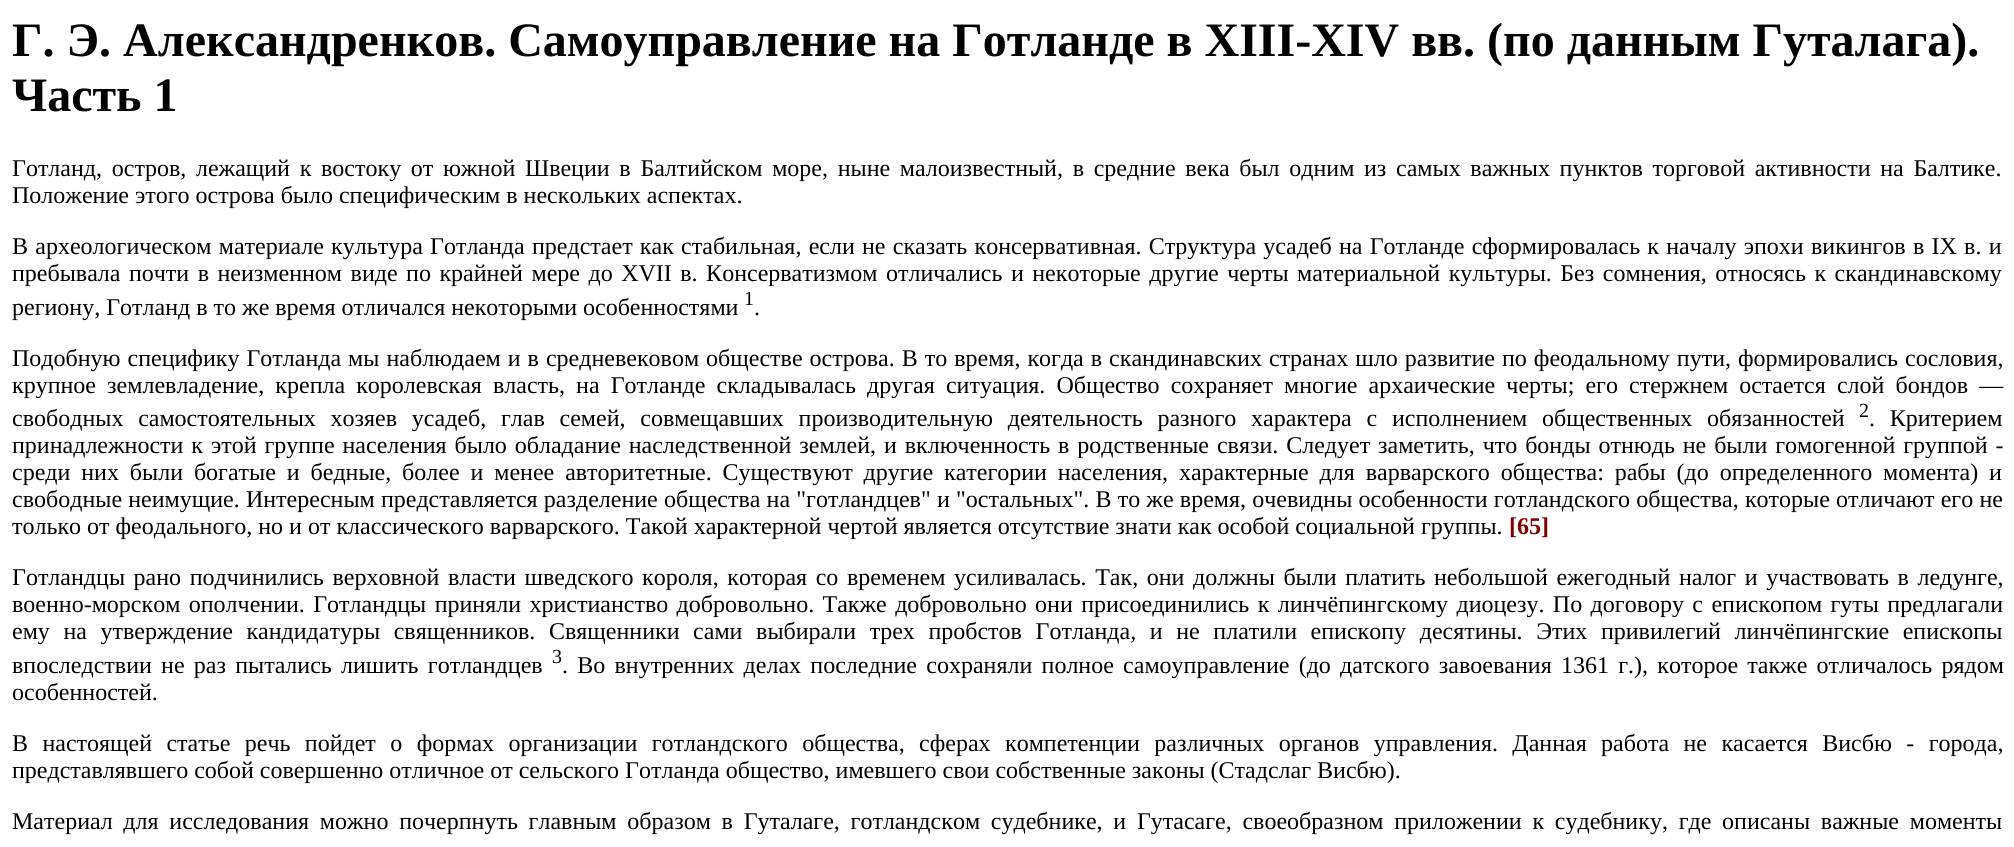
#include <cairo.h>
#include <math.h>
#include <stddef.h>

static cairo_t *ctx;

static void use_color(int r, int g, int b) {
    cairo_set_source_rgb(ctx, r / 255.0, g / 255.0, b / 255.0);
}

static void spaced_text(double x, double y, const char *s, double letter, double word) {
    cairo_move_to(ctx, x, y);
    while (*s) {
        char ch[5] = {0};
        int n = 0;
        do ch[n++] = *s++; while ((*s & 0xC0) == 0x80);
        cairo_show_text(ctx, ch);
        cairo_rel_move_to(ctx, letter + word * (*ch == ' '), 0);
    }
}

int main(void) {
    cairo_surface_t *surface = cairo_image_surface_create(CAIRO_FORMAT_RGB24, 2014, 847);
    ctx = cairo_create(surface);
    cairo_font_options_t *options = cairo_font_options_create();
    cairo_font_options_set_hint_metrics(options, CAIRO_HINT_METRICS_OFF);
    cairo_font_options_set_hint_style(options, CAIRO_HINT_STYLE_NONE);
    cairo_set_font_options(ctx, options);
    cairo_set_miter_limit(ctx, 4);
    use_color(255, 255, 255);
    cairo_paint(ctx);
    cairo_select_font_face(ctx, "Liberation Serif", CAIRO_FONT_SLANT_NORMAL, CAIRO_FONT_WEIGHT_BOLD);
    cairo_set_font_size(ctx, 48);
    use_color(0, 0, 0);
    cairo_move_to(ctx, 12, 56);
    cairo_show_text(ctx, "Г. Э. Александренков. Самоуправление на Готланде в XIII-XIV вв. (по данным Гуталага).");
    cairo_move_to(ctx, 12, 111);
    cairo_show_text(ctx, "Часть 1");
    cairo_select_font_face(ctx, "Liberation Serif", CAIRO_FONT_SLANT_NORMAL, CAIRO_FONT_WEIGHT_NORMAL);
    cairo_set_font_size(ctx, 24);
    spaced_text(12, 176, "Готланд, остров, лежащий к востоку от южной Швеции в Балтийском море, ныне малоизвестный, в средние века был одним из самых важных пунктов торговой активности на Балтике.", 0, 3.7);
    cairo_move_to(ctx, 12, 203);
    cairo_show_text(ctx, "Положение этого острова было специфическим в нескольких аспектах.");
    spaced_text(12, 254, "В археологическом материале культура Готланда предстает как стабильная, если не сказать консервативная. Структура усадеб на Готланде сформировалась к началу эпохи викингов в IX в. и", 0, 1.25);
    spaced_text(12, 281, "пребывала почти в неизменном виде по крайней мере до XVII в. Консерватизмом отличались и некоторые другие черты материальной культуры. Без сомнения, относясь к скандинавскому", 0, 2.5);
    cairo_move_to(ctx, 12, 315);
    cairo_show_text(ctx, "региону, Готланд в то же время отличался некоторыми особенностями");
    cairo_set_font_size(ctx, 20);
    cairo_move_to(ctx, 744, 305);
    cairo_show_text(ctx, "1");
    cairo_set_font_size(ctx, 24);
    cairo_move_to(ctx, 754, 315);
    cairo_show_text(ctx, ".");
    spaced_text(12, 366, "Подобную специфику Готланда мы наблюдаем и в средневековом обществе острова. В то время, когда в скандинавских странах шло развитие по феодальному пути, формировались сословия,", 0, 1);
    spaced_text(12, 393, "крупное землевладение, крепла королевская власть, на Готланде складывалась другая ситуация. Общество сохраняет многие архаические черты; его стержнем остается слой бондов —", 0, 5.1);
    spaced_text(12, 426, "свободных самостоятельных хозяев усадеб, глав семей, совмещавших производительную деятельность разного характера с исполнением общественных обязанностей", 0, 8.75);
    cairo_set_font_size(ctx, 20);
    cairo_move_to(ctx, 1859, 417);
    cairo_show_text(ctx, "2");
    cairo_set_font_size(ctx, 24);
    spaced_text(1869, 426, ". Критерием", 0, 8.75);
    spaced_text(12, 453, "принадлежности к этой группе населения было обладание наследственной землей, и включенность в родственные связи. Следует заметить, что бонды отнюдь не были гомогенной группой -", 0, 1.9);
    spaced_text(12, 480, "среди них были богатые и бедные, более и менее авторитетные. Существуют другие категории населения, характерные для варварского общества: рабы (до определенного момента) и", 0, 4.9);
    spaced_text(12, 507, "свободные неимущие. Интересным представляется разделение общества на \"готландцев\" и \"остальных\". В то же время, очевидны особенности готландского общества, которые отличают его не", 0, 0.2);
    cairo_move_to(ctx, 12, 534);
    cairo_show_text(ctx, "только от феодального, но и от классического варварского. Такой характерной чертой является отсутствие знати как особой социальной группы.");
    cairo_select_font_face(ctx, "Liberation Serif", CAIRO_FONT_SLANT_NORMAL, CAIRO_FONT_WEIGHT_BOLD);
    use_color(128, 0, 0);
    cairo_move_to(ctx, 1509, 534);
    cairo_show_text(ctx, "[65]");
    cairo_select_font_face(ctx, "Liberation Serif", CAIRO_FONT_SLANT_NORMAL, CAIRO_FONT_WEIGHT_NORMAL);
    use_color(0, 0, 0);
    spaced_text(12, 585, "Готландцы рано подчинились верховной власти шведского короля, которая со временем усиливалась. Так, они должны были платить небольшой ежегодный налог и участвовать в ледунге,", 0, 2.6);
    spaced_text(12, 612, "военно-морском ополчении. Готландцы приняли христианство добровольно. Также добровольно они присоединились к линчёпингскому диоцезу. По договору с епископом гуты предлагали", 0, 2.4);
    spaced_text(12, 639, "ему на утверждение кандидатуры священников. Священники сами выбирали трех пробстов Готланда, и не платили епископу десятины. Этих привилегий линчёпингские епископы", 0, 7.6);
    spaced_text(12, 673, "впоследствии не раз пытались лишить готландцев", 0, 3.25);
    cairo_set_font_size(ctx, 20);
    cairo_move_to(ctx, 552, 663);
    cairo_show_text(ctx, "3");
    cairo_set_font_size(ctx, 24);
    spaced_text(562, 673, ". Во внутренних делах последние сохраняли полное самоуправление (до датского завоевания 1361 г.), которое также отличалось рядом", 0, 3.25);
    cairo_move_to(ctx, 12, 700);
    cairo_show_text(ctx, "особенностей.");
    spaced_text(12, 751, "В настоящей статье речь пойдет о формах организации готландского общества, сферах компетенции различных органов управления. Данная работа не касается Висбю - города,", 0, 8.4);
    cairo_move_to(ctx, 12, 778);
    cairo_show_text(ctx, "представлявшего собой совершенно отличное от сельского Готланда общество, имевшего свои собственные законы (Стадслаг Висбю).");
    spaced_text(12, 829, "Материал для исследования можно почерпнуть главным образом в Гуталаге, готландском судебнике, и Гутасаге, своеобразном приложении к судебнику, где описаны важные моменты", 0, 4.75);
    cairo_surface_write_to_png(surface, "result.png");
    cairo_font_options_destroy(options);
    cairo_destroy(ctx);
    cairo_surface_destroy(surface);
    return 0;
}
